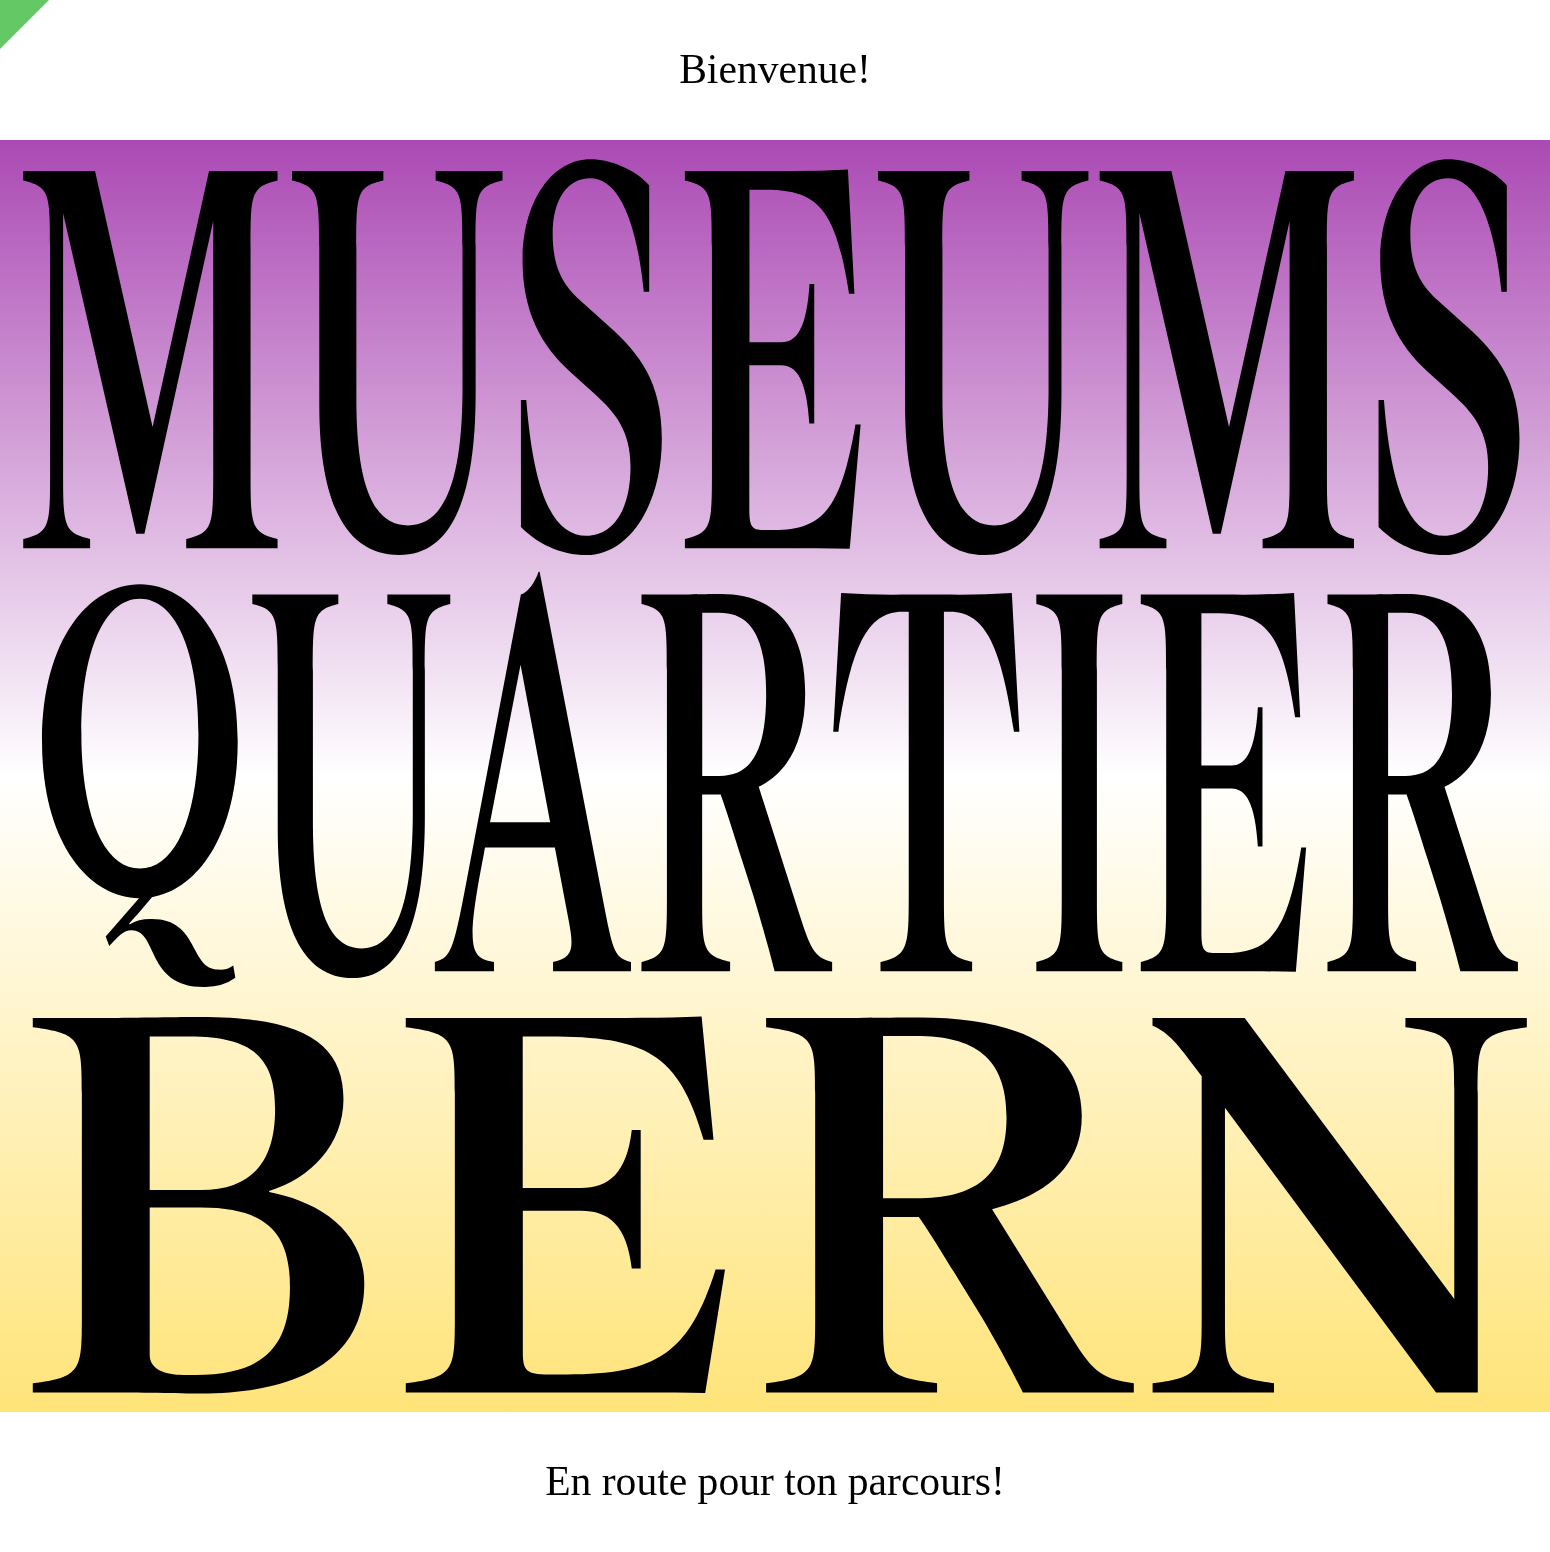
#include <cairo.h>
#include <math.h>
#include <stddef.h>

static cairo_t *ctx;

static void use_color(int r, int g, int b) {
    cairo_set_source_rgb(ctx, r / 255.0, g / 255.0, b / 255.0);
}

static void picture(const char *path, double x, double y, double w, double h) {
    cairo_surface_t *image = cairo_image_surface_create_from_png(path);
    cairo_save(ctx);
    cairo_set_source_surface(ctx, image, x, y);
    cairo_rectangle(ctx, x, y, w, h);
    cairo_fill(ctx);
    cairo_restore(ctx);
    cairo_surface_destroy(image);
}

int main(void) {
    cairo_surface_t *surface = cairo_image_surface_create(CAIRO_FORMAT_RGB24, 1550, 1552);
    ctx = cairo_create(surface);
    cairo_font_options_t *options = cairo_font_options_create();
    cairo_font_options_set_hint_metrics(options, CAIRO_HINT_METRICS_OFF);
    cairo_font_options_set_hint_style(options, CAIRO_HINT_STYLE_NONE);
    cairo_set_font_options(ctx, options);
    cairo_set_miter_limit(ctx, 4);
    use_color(255, 255, 255);
    cairo_paint(ctx);
    use_color(100, 200, 100);
    cairo_new_path(ctx);
    cairo_move_to(ctx, 0, -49);
    cairo_line_to(ctx, 49, 0);
    cairo_line_to(ctx, 0, 49);
    cairo_line_to(ctx, -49, 0);
    cairo_close_path(ctx);
    cairo_fill(ctx);
    picture("img1.png", 0, 55, 1550, 1449);
    cairo_surface_write_to_png(surface, "result.png");
    cairo_font_options_destroy(options);
    cairo_destroy(ctx);
    cairo_surface_destroy(surface);
    return 0;
}
